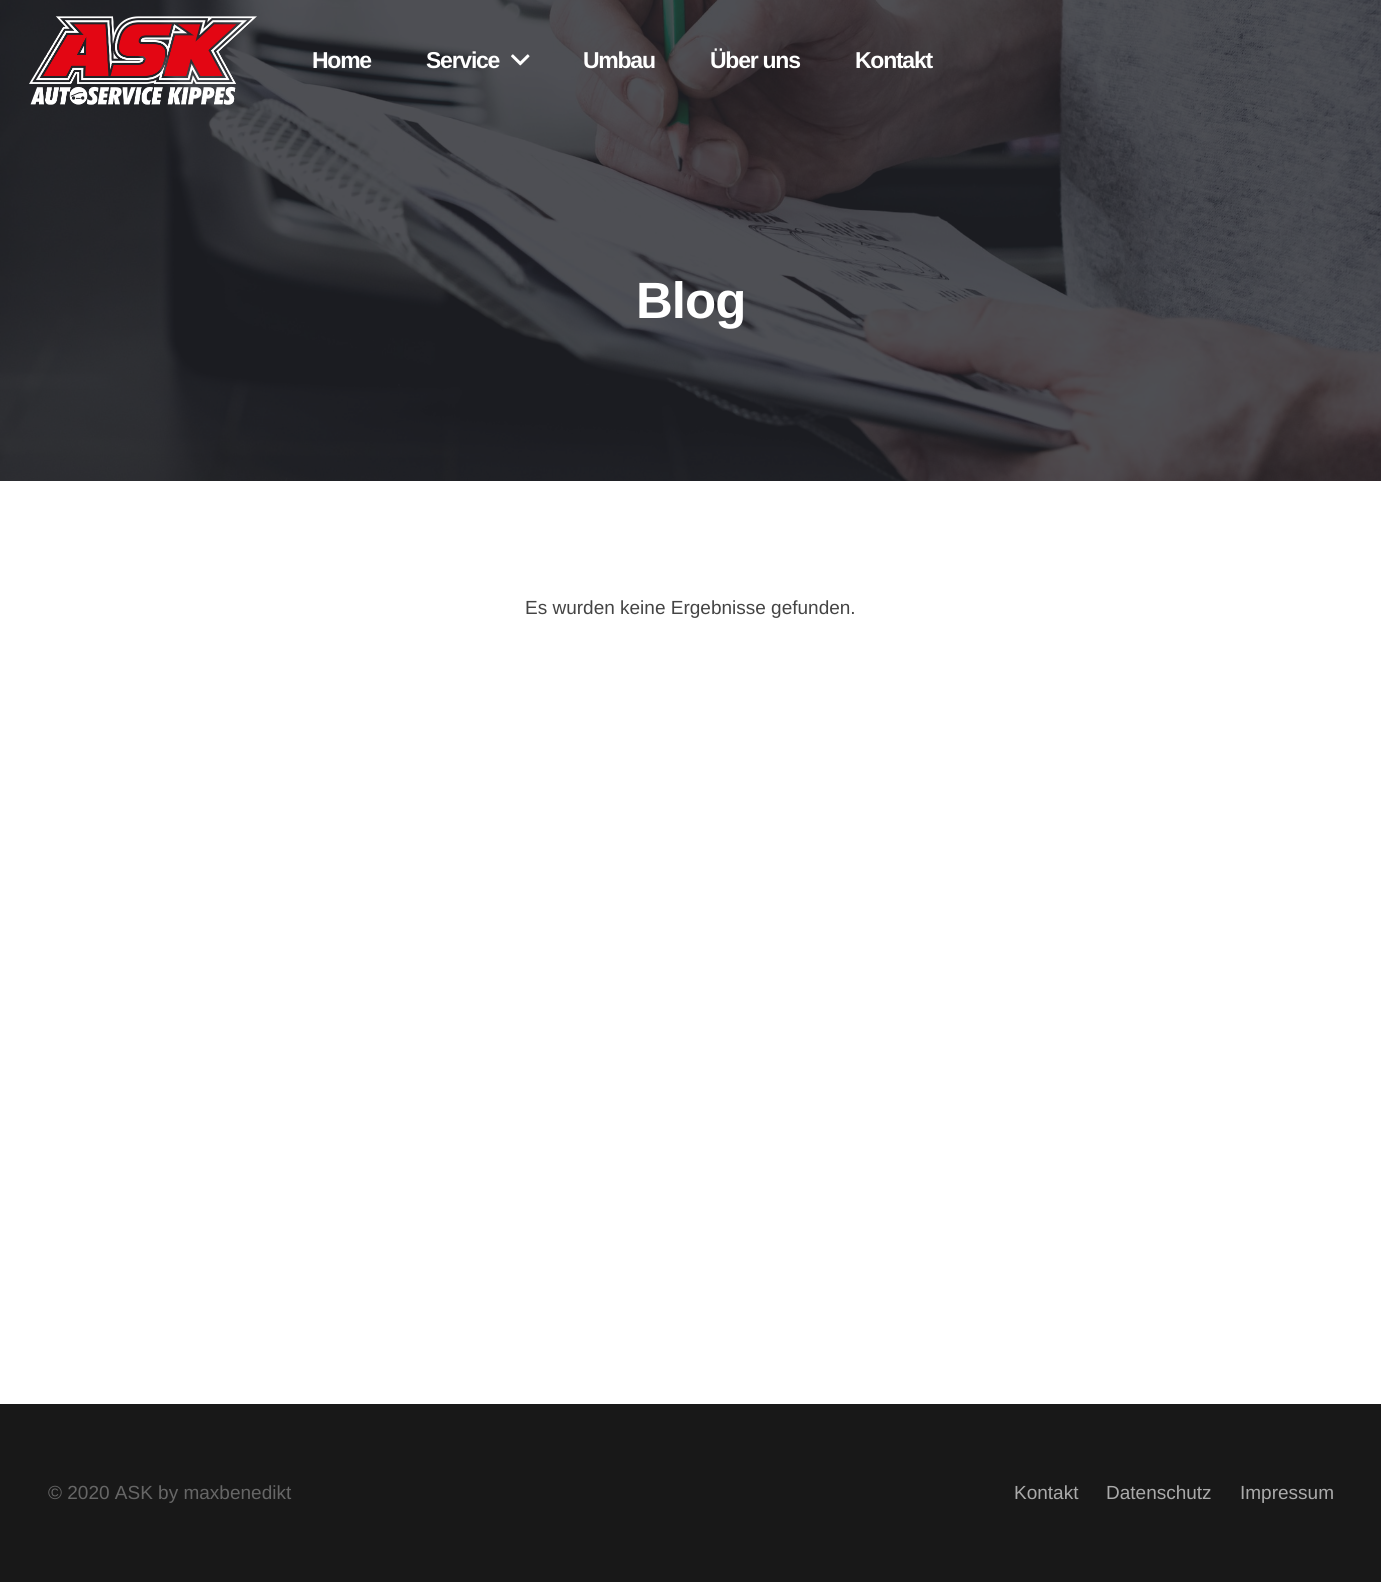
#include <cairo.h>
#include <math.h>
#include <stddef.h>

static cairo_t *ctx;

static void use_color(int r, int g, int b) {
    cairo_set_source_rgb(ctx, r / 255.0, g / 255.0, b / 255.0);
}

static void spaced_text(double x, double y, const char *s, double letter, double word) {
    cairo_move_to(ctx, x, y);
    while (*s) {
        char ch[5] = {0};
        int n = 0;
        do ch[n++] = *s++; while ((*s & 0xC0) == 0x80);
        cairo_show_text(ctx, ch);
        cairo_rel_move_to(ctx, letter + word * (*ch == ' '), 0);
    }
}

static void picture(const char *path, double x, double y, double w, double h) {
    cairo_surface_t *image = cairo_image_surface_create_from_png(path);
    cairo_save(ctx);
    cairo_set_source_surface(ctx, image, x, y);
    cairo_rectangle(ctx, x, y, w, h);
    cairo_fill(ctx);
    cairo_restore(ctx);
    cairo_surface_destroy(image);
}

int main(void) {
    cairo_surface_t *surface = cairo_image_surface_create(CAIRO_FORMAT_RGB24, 1381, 1582);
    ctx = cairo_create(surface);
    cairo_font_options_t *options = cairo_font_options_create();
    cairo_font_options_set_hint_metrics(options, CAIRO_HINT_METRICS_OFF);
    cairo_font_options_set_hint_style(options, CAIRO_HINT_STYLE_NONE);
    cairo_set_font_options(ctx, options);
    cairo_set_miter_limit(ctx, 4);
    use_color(255, 255, 255);
    cairo_paint(ctx);
    picture("img3.png", 0, 0, 1381, 481);
    picture("img1.png", 29, 16, 228, 89);
    cairo_select_font_face(ctx, "Liberation Sans", CAIRO_FONT_SLANT_NORMAL, CAIRO_FONT_WEIGHT_BOLD);
    cairo_set_font_size(ctx, 23);
    use_color(255, 255, 255);
    spaced_text(312, 68, "Home", -1.25, 0);
    spaced_text(426, 68, "Service", -1.25, 0);
    picture("img2.png", 511, 54, 19, 12);
    spaced_text(583, 68, "Umbau", -1.25, 0);
    spaced_text(710, 68, "Über uns", -1.25, 0);
    spaced_text(855, 68, "Kontakt", -1.25, 0);
    cairo_set_font_size(ctx, 51);
    spaced_text(636, 318, "Blog", -1, 0);
    cairo_select_font_face(ctx, "Liberation Sans", CAIRO_FONT_SLANT_NORMAL, CAIRO_FONT_WEIGHT_NORMAL);
    cairo_set_font_size(ctx, 19);
    use_color(68, 68, 68);
    cairo_move_to(ctx, 525, 614);
    cairo_show_text(ctx, "Es wurden keine Ergebnisse gefunden.");
    use_color(24, 24, 24);
    cairo_rectangle(ctx, 0, 1404, 1381, 178);
    cairo_fill(ctx);
    use_color(102, 102, 102);
    cairo_move_to(ctx, 48, 1499);
    cairo_show_text(ctx, "© 2020 ASK by maxbenedikt");
    use_color(170, 170, 170);
    cairo_move_to(ctx, 1014, 1499);
    cairo_show_text(ctx, "Kontakt");
    cairo_move_to(ctx, 1106, 1499);
    cairo_show_text(ctx, "Datenschutz");
    cairo_move_to(ctx, 1240, 1499);
    cairo_show_text(ctx, "Impressum");
    cairo_surface_write_to_png(surface, "result.png");
    cairo_font_options_destroy(options);
    cairo_destroy(ctx);
    cairo_surface_destroy(surface);
    return 0;
}
